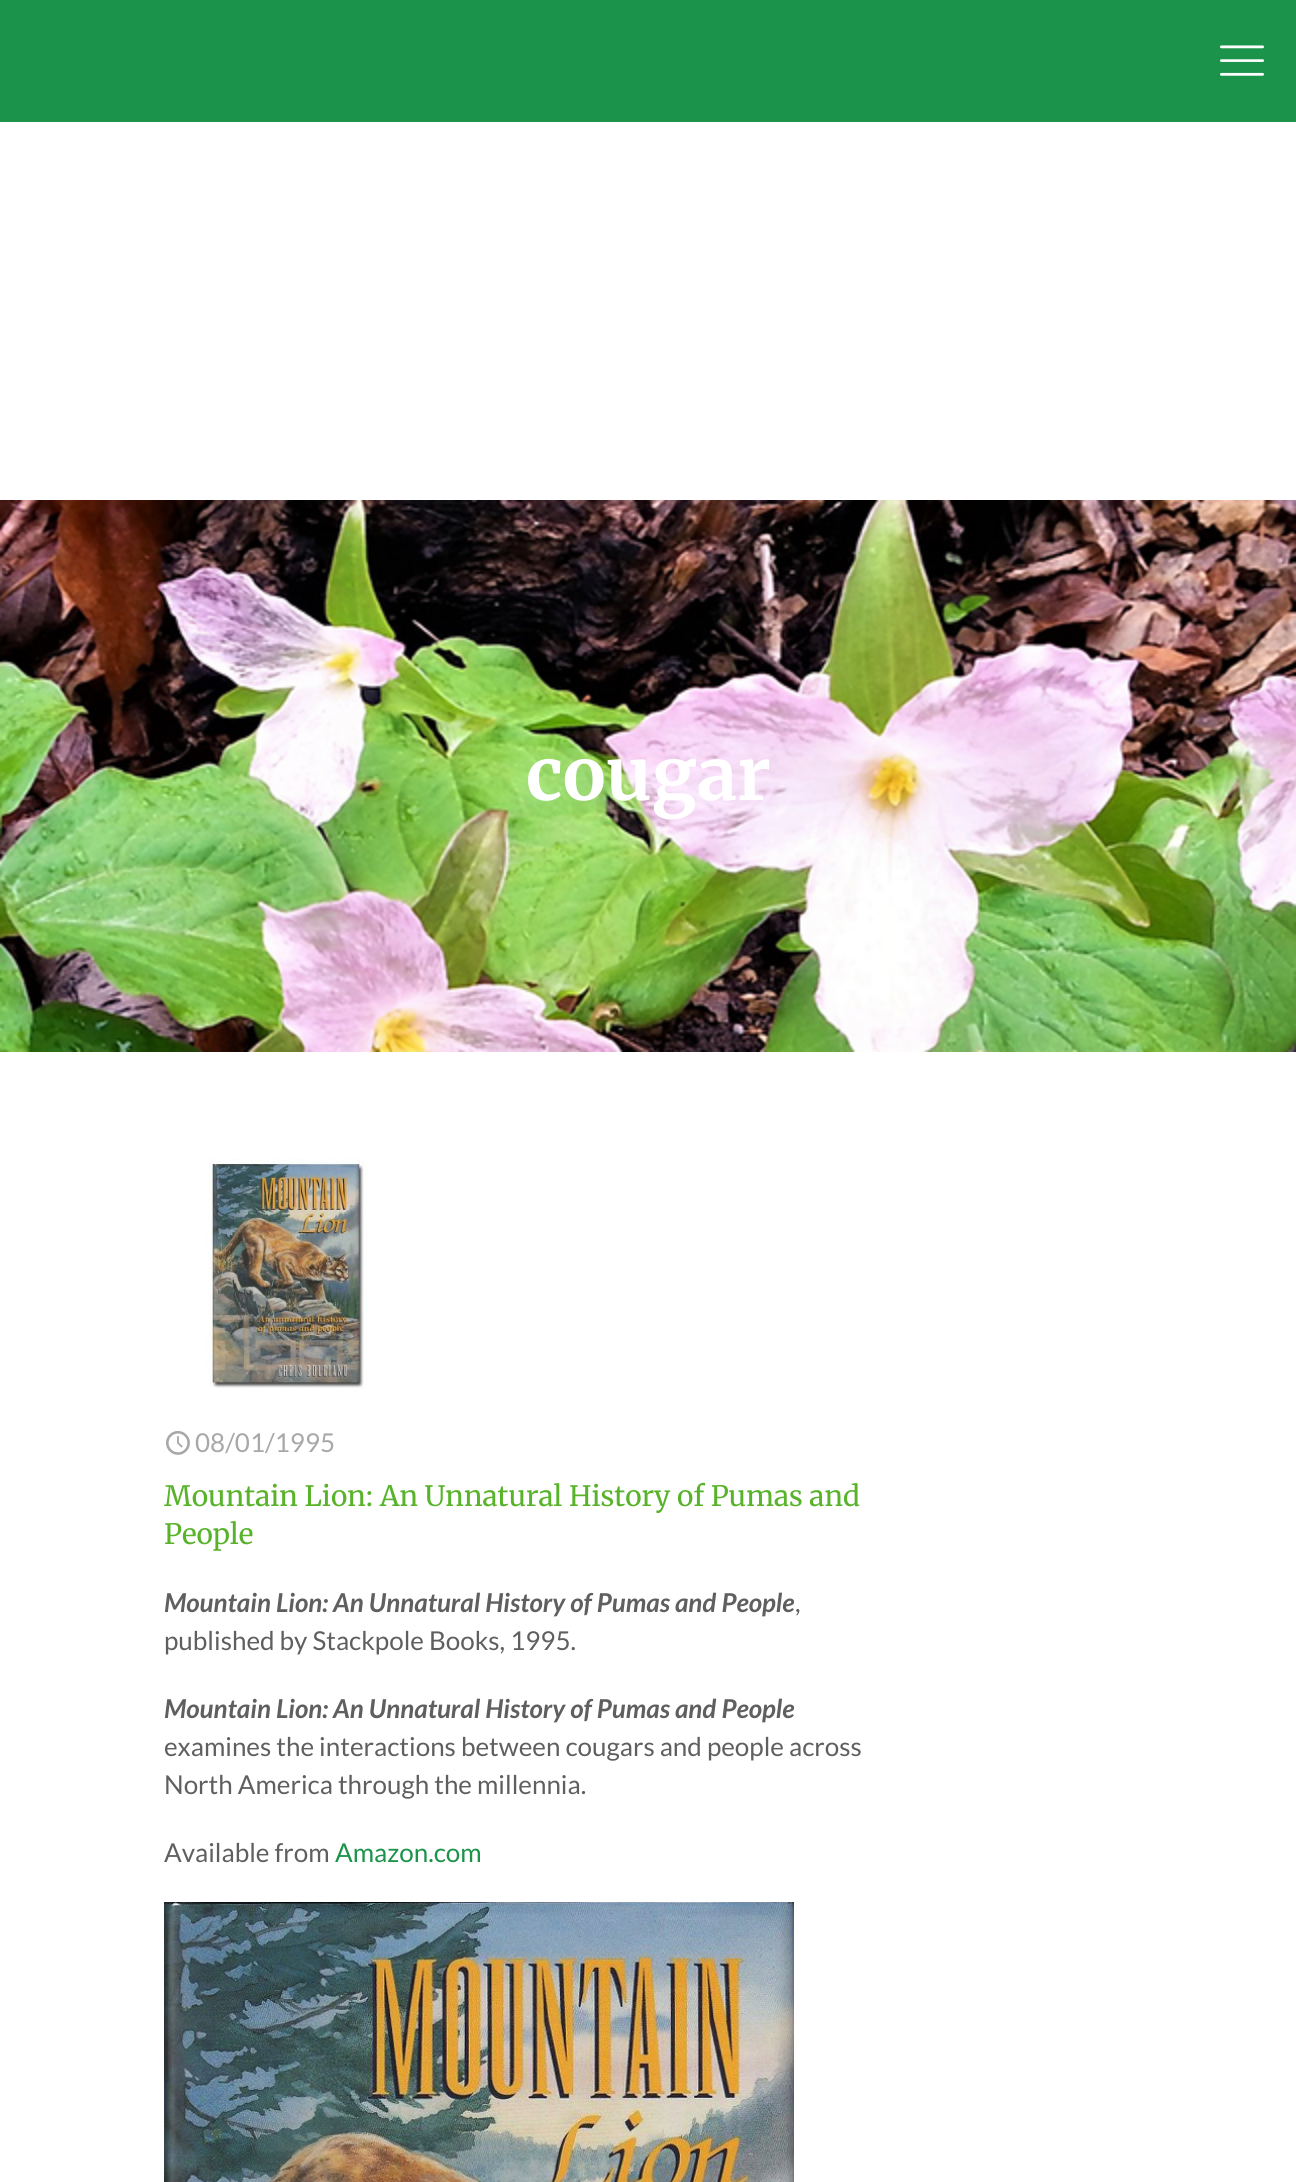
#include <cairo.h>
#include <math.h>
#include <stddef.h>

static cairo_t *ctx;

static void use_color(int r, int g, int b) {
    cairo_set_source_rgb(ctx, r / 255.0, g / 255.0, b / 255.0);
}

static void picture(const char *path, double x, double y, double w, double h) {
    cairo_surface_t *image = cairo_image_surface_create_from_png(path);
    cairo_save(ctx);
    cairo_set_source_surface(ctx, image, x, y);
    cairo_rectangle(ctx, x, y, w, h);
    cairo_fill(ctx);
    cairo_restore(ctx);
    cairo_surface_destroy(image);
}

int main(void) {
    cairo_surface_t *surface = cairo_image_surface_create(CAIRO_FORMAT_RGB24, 1296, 2182);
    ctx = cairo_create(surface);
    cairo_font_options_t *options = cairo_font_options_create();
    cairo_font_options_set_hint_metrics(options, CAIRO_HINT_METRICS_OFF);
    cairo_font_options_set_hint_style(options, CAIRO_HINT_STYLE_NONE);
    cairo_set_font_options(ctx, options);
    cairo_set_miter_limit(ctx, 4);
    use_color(255, 255, 255);
    cairo_paint(ctx);
    use_color(27, 147, 75);
    cairo_rectangle(ctx, 0, 0, 1296, 122);
    cairo_fill(ctx);
    picture("img1.png", 1220, 45, 44, 31);
    picture("img2.png", 0, 500, 1296, 552);
    cairo_select_font_face(ctx, "Merriweather", CAIRO_FONT_SLANT_NORMAL, CAIRO_FONT_WEIGHT_BOLD);
    cairo_set_font_size(ctx, 72);
    use_color(255, 255, 255);
    cairo_move_to(ctx, 526, 800);
    cairo_show_text(ctx, "cougar");
    picture("img3.png", 206, 1159, 162, 229);
    picture("img4.png", 166, 1431, 24, 24);
    cairo_select_font_face(ctx, "Lato", CAIRO_FONT_SLANT_NORMAL, CAIRO_FONT_WEIGHT_NORMAL);
    cairo_set_font_size(ctx, 26);
    use_color(168, 168, 168);
    cairo_move_to(ctx, 195, 1452);
    cairo_show_text(ctx, "08/01/1995");
    cairo_select_font_face(ctx, "Merriweather", CAIRO_FONT_SLANT_NORMAL, CAIRO_FONT_WEIGHT_NORMAL);
    cairo_set_font_size(ctx, 28);
    use_color(88, 179, 43);
    cairo_move_to(ctx, 164, 1506);
    cairo_show_text(ctx, "Mountain Lion: An Unnatural History of Pumas and");
    cairo_move_to(ctx, 164, 1544);
    cairo_show_text(ctx, "People");
    cairo_select_font_face(ctx, "Lato", CAIRO_FONT_SLANT_ITALIC, CAIRO_FONT_WEIGHT_BOLD);
    cairo_set_font_size(ctx, 26);
    use_color(95, 95, 95);
    cairo_move_to(ctx, 164, 1612);
    cairo_show_text(ctx, "Mountain Lion: An Unnatural History of Pumas and People");
    cairo_select_font_face(ctx, "Lato", CAIRO_FONT_SLANT_NORMAL, CAIRO_FONT_WEIGHT_NORMAL);
    cairo_move_to(ctx, 795, 1612);
    cairo_show_text(ctx, ",");
    cairo_move_to(ctx, 164, 1650);
    cairo_show_text(ctx, "published by Stackpole Books, 1995.");
    cairo_select_font_face(ctx, "Lato", CAIRO_FONT_SLANT_ITALIC, CAIRO_FONT_WEIGHT_BOLD);
    cairo_move_to(ctx, 164, 1718);
    cairo_show_text(ctx, "Mountain Lion: An Unnatural History of Pumas and People");
    cairo_select_font_face(ctx, "Lato", CAIRO_FONT_SLANT_NORMAL, CAIRO_FONT_WEIGHT_NORMAL);
    cairo_move_to(ctx, 164, 1756);
    cairo_show_text(ctx, "examines the interactions between cougars and people across");
    cairo_move_to(ctx, 164, 1794);
    cairo_show_text(ctx, "North America through the millennia.");
    cairo_move_to(ctx, 164, 1862);
    cairo_show_text(ctx, "Available from");
    use_color(27, 147, 75);
    cairo_move_to(ctx, 335, 1862);
    cairo_show_text(ctx, "Amazon.com");
    picture("img5.png", 164, 1902, 630, 280);
    cairo_surface_write_to_png(surface, "result.png");
    cairo_font_options_destroy(options);
    cairo_destroy(ctx);
    cairo_surface_destroy(surface);
    return 0;
}
